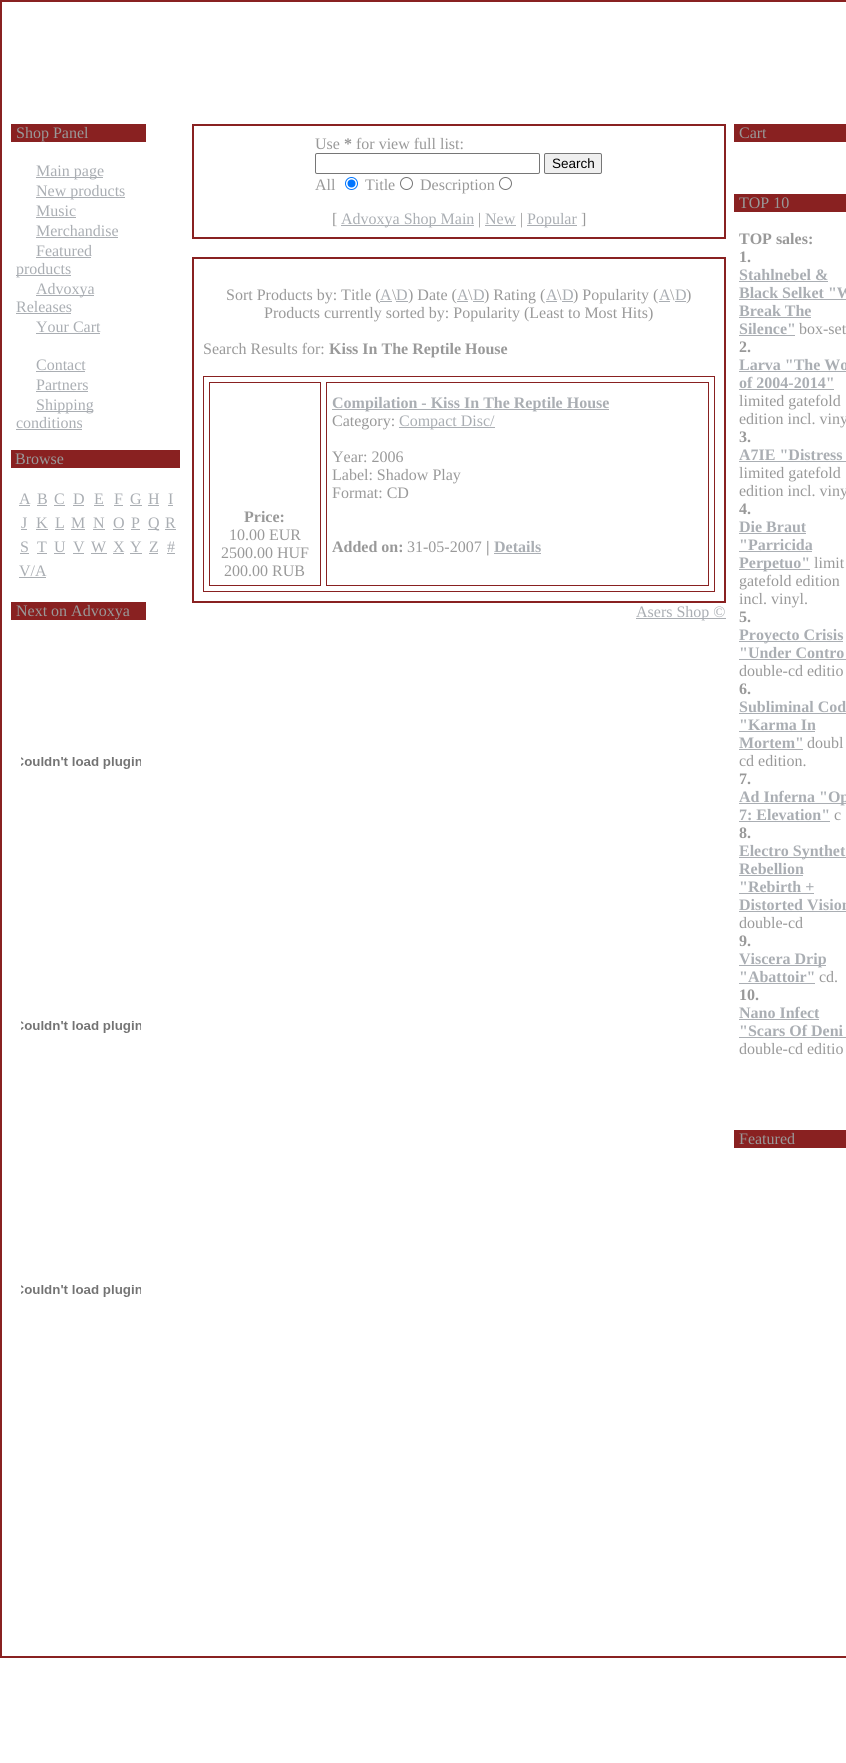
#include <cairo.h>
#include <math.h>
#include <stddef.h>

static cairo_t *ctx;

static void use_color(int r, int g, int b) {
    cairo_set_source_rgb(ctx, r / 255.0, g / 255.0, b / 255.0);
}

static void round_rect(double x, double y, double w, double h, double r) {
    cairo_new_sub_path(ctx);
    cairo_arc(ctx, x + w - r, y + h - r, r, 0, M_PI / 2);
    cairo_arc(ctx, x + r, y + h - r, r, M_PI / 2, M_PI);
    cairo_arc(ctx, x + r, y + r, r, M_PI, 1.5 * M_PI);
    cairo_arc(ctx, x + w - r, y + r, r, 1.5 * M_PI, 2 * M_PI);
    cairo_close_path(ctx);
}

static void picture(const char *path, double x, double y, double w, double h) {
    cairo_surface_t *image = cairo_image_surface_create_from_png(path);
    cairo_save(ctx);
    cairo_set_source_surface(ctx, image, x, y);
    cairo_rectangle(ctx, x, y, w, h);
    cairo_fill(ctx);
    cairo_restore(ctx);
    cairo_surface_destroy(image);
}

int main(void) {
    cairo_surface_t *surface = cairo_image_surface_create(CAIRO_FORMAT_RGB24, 846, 1763);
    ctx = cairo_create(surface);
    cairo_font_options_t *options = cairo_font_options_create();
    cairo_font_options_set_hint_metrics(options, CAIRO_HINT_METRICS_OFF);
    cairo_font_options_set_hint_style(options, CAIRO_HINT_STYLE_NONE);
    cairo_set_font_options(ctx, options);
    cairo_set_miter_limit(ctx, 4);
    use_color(255, 255, 255);
    cairo_paint(ctx);
    cairo_rectangle(ctx, 0.5, 0.5, 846, 1657);
    use_color(137, 33, 33);
    cairo_set_line_width(ctx, 1);
    cairo_stroke(ctx);
    cairo_rectangle(ctx, 1.5, 1.5, 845, 1655);
    cairo_stroke(ctx);
    cairo_rectangle(ctx, 11, 124, 135, 18);
    cairo_fill(ctx);
    cairo_select_font_face(ctx, "Liberation Serif", CAIRO_FONT_SLANT_NORMAL, CAIRO_FONT_WEIGHT_NORMAL);
    cairo_set_font_size(ctx, 16);
    use_color(153, 153, 153);
    cairo_move_to(ctx, 16, 138);
    cairo_show_text(ctx, "Shop Panel");
    use_color(170, 174, 179);
    cairo_rectangle(ctx, 36, 177, 67, 1);
    cairo_fill(ctx);
    cairo_move_to(ctx, 36, 176);
    cairo_show_text(ctx, "Main page");
    cairo_rectangle(ctx, 36, 197, 89, 1);
    cairo_fill(ctx);
    cairo_move_to(ctx, 36, 196);
    cairo_show_text(ctx, "New products");
    cairo_move_to(ctx, 36, 216);
    cairo_show_text(ctx, "Music");
    cairo_rectangle(ctx, 36, 217, 40, 1);
    cairo_fill(ctx);
    cairo_move_to(ctx, 36, 236);
    cairo_show_text(ctx, "Merchandise");
    cairo_rectangle(ctx, 36, 237, 82, 1);
    cairo_fill(ctx);
    cairo_move_to(ctx, 36, 256);
    cairo_show_text(ctx, "Featured");
    cairo_rectangle(ctx, 36, 257, 55, 1);
    cairo_fill(ctx);
    cairo_rectangle(ctx, 16, 275, 55, 1);
    cairo_fill(ctx);
    cairo_move_to(ctx, 16, 274);
    cairo_show_text(ctx, "products");
    cairo_rectangle(ctx, 36, 295, 58, 1);
    cairo_fill(ctx);
    cairo_move_to(ctx, 36, 294);
    cairo_show_text(ctx, "Advoxya");
    cairo_move_to(ctx, 16, 312);
    cairo_show_text(ctx, "Releases");
    cairo_rectangle(ctx, 16, 313, 55, 1);
    cairo_fill(ctx);
    cairo_move_to(ctx, 36, 332);
    cairo_show_text(ctx, "Your Cart");
    cairo_rectangle(ctx, 36, 333, 64, 1);
    cairo_fill(ctx);
    cairo_move_to(ctx, 36, 370);
    cairo_show_text(ctx, "Contact");
    cairo_rectangle(ctx, 36, 371, 49, 1);
    cairo_fill(ctx);
    cairo_move_to(ctx, 36, 390);
    cairo_show_text(ctx, "Partners");
    cairo_rectangle(ctx, 36, 391, 52, 1);
    cairo_fill(ctx);
    cairo_rectangle(ctx, 36, 411, 57, 1);
    cairo_fill(ctx);
    cairo_move_to(ctx, 36, 410);
    cairo_show_text(ctx, "Shipping");
    cairo_move_to(ctx, 16, 428);
    cairo_show_text(ctx, "conditions");
    cairo_rectangle(ctx, 16, 429, 66, 1);
    cairo_fill(ctx);
    use_color(137, 33, 33);
    cairo_rectangle(ctx, 11, 450, 169, 18);
    cairo_fill(ctx);
    use_color(153, 153, 153);
    cairo_move_to(ctx, 15, 464);
    cairo_show_text(ctx, "Browse");
    use_color(170, 174, 179);
    cairo_move_to(ctx, 19, 504);
    cairo_show_text(ctx, "A");
    cairo_rectangle(ctx, 19, 505, 11, 1);
    cairo_fill(ctx);
    cairo_move_to(ctx, 37, 504);
    cairo_show_text(ctx, "B");
    cairo_rectangle(ctx, 37, 505, 10, 1);
    cairo_fill(ctx);
    cairo_move_to(ctx, 54, 504);
    cairo_show_text(ctx, "C");
    cairo_rectangle(ctx, 54, 505, 11, 1);
    cairo_fill(ctx);
    cairo_move_to(ctx, 73, 504);
    cairo_show_text(ctx, "D");
    cairo_rectangle(ctx, 73, 505, 11, 1);
    cairo_fill(ctx);
    cairo_move_to(ctx, 94, 504);
    cairo_show_text(ctx, "E");
    cairo_rectangle(ctx, 94, 505, 10, 1);
    cairo_fill(ctx);
    cairo_move_to(ctx, 114, 504);
    cairo_show_text(ctx, "F");
    cairo_rectangle(ctx, 114, 505, 9, 1);
    cairo_fill(ctx);
    cairo_move_to(ctx, 130, 504);
    cairo_show_text(ctx, "G");
    cairo_rectangle(ctx, 130, 505, 12, 1);
    cairo_fill(ctx);
    cairo_move_to(ctx, 148, 504);
    cairo_show_text(ctx, "H");
    cairo_rectangle(ctx, 148, 505, 11, 1);
    cairo_fill(ctx);
    cairo_move_to(ctx, 168, 504);
    cairo_show_text(ctx, "I");
    cairo_rectangle(ctx, 168, 505, 5, 1);
    cairo_fill(ctx);
    cairo_move_to(ctx, 21, 528);
    cairo_show_text(ctx, "J");
    cairo_rectangle(ctx, 21, 529, 6, 1);
    cairo_fill(ctx);
    cairo_move_to(ctx, 36, 528);
    cairo_show_text(ctx, "K");
    cairo_rectangle(ctx, 36, 529, 12, 1);
    cairo_fill(ctx);
    cairo_move_to(ctx, 55, 528);
    cairo_show_text(ctx, "L");
    cairo_rectangle(ctx, 55, 529, 9, 1);
    cairo_fill(ctx);
    cairo_move_to(ctx, 71, 528);
    cairo_show_text(ctx, "M");
    cairo_rectangle(ctx, 71, 529, 14, 1);
    cairo_fill(ctx);
    cairo_move_to(ctx, 93, 528);
    cairo_show_text(ctx, "N");
    cairo_rectangle(ctx, 93, 529, 12, 1);
    cairo_fill(ctx);
    cairo_move_to(ctx, 113, 528);
    cairo_show_text(ctx, "O");
    cairo_rectangle(ctx, 113, 529, 11, 1);
    cairo_fill(ctx);
    cairo_move_to(ctx, 131, 528);
    cairo_show_text(ctx, "P");
    cairo_rectangle(ctx, 131, 529, 9, 1);
    cairo_fill(ctx);
    cairo_rectangle(ctx, 148, 529, 11, 1);
    cairo_fill(ctx);
    cairo_move_to(ctx, 148, 528);
    cairo_show_text(ctx, "Q");
    cairo_move_to(ctx, 165, 528);
    cairo_show_text(ctx, "R");
    cairo_rectangle(ctx, 165, 529, 11, 1);
    cairo_fill(ctx);
    cairo_move_to(ctx, 20, 552);
    cairo_show_text(ctx, "S");
    cairo_rectangle(ctx, 20, 553, 9, 1);
    cairo_fill(ctx);
    cairo_move_to(ctx, 37, 552);
    cairo_show_text(ctx, "T");
    cairo_rectangle(ctx, 37, 553, 10, 1);
    cairo_fill(ctx);
    cairo_move_to(ctx, 54, 552);
    cairo_show_text(ctx, "U");
    cairo_rectangle(ctx, 54, 553, 11, 1);
    cairo_fill(ctx);
    cairo_move_to(ctx, 73, 552);
    cairo_show_text(ctx, "V");
    cairo_rectangle(ctx, 73, 553, 11, 1);
    cairo_fill(ctx);
    cairo_move_to(ctx, 91, 552);
    cairo_show_text(ctx, "W");
    cairo_rectangle(ctx, 91, 553, 16, 1);
    cairo_fill(ctx);
    cairo_move_to(ctx, 113, 552);
    cairo_show_text(ctx, "X");
    cairo_rectangle(ctx, 113, 553, 11, 1);
    cairo_fill(ctx);
    cairo_move_to(ctx, 130, 552);
    cairo_show_text(ctx, "Y");
    cairo_rectangle(ctx, 130, 553, 12, 1);
    cairo_fill(ctx);
    cairo_move_to(ctx, 149, 552);
    cairo_show_text(ctx, "Z");
    cairo_rectangle(ctx, 149, 553, 9, 1);
    cairo_fill(ctx);
    cairo_move_to(ctx, 167, 552);
    cairo_show_text(ctx, "#");
    cairo_rectangle(ctx, 167, 553, 8, 1);
    cairo_fill(ctx);
    cairo_move_to(ctx, 19, 576);
    cairo_show_text(ctx, "V/A");
    cairo_rectangle(ctx, 19, 577, 27, 1);
    cairo_fill(ctx);
    use_color(137, 33, 33);
    cairo_rectangle(ctx, 11, 602, 135, 18);
    cairo_fill(ctx);
    use_color(153, 153, 153);
    cairo_move_to(ctx, 16, 616);
    cairo_show_text(ctx, "Next on Advoxya");
    picture("img1.png", 21, 757, 120, 12);
    picture("img1.png", 21, 1021, 120, 12);
    picture("img1.png", 21, 1285, 120, 12);
    cairo_rectangle(ctx, 192.5, 124.5, 533, 114);
    use_color(137, 33, 33);
    cairo_stroke(ctx);
    cairo_rectangle(ctx, 193.5, 125.5, 531, 112);
    cairo_stroke(ctx);
    use_color(153, 153, 153);
    cairo_move_to(ctx, 315, 149);
    cairo_show_text(ctx, "Use");
    cairo_select_font_face(ctx, "Liberation Serif", CAIRO_FONT_SLANT_NORMAL, CAIRO_FONT_WEIGHT_BOLD);
    cairo_move_to(ctx, 344, 149);
    cairo_show_text(ctx, "*");
    cairo_select_font_face(ctx, "Liberation Serif", CAIRO_FONT_SLANT_NORMAL, CAIRO_FONT_WEIGHT_NORMAL);
    cairo_move_to(ctx, 356, 149);
    cairo_show_text(ctx, "for view full list:");
    round_rect(315.5, 153.5, 224, 20, 1.5);
    use_color(118, 118, 118);
    cairo_stroke(ctx);
    use_color(239, 239, 239);
    round_rect(544.5, 153.5, 57, 20, 1.5);
    cairo_fill_preserve(ctx);
    use_color(118, 118, 118);
    cairo_stroke(ctx);
    cairo_select_font_face(ctx, "Liberation Sans", CAIRO_FONT_SLANT_NORMAL, CAIRO_FONT_WEIGHT_NORMAL);
    cairo_set_font_size(ctx, 13.5);
    use_color(0, 0, 0);
    cairo_move_to(ctx, 552, 168);
    cairo_show_text(ctx, "Search");
    cairo_select_font_face(ctx, "Liberation Serif", CAIRO_FONT_SLANT_NORMAL, CAIRO_FONT_WEIGHT_NORMAL);
    cairo_set_font_size(ctx, 16);
    use_color(153, 153, 153);
    cairo_move_to(ctx, 315, 190);
    cairo_show_text(ctx, "All");
    cairo_new_path(ctx);
    cairo_arc(ctx, 351.5, 183.5, 6, 0, 2 * M_PI);
    use_color(0, 117, 255);
    cairo_stroke(ctx);
    cairo_arc(ctx, 351.5, 183.5, 4, 0, 2 * M_PI);
    cairo_fill(ctx);
    use_color(153, 153, 153);
    cairo_move_to(ctx, 365, 190);
    cairo_show_text(ctx, "Title");
    cairo_new_path(ctx);
    cairo_arc(ctx, 406.5, 183.5, 6, 0, 2 * M_PI);
    use_color(118, 118, 118);
    cairo_stroke(ctx);
    use_color(153, 153, 153);
    cairo_move_to(ctx, 420, 190);
    cairo_show_text(ctx, "Description");
    cairo_new_path(ctx);
    cairo_arc(ctx, 505.5, 183.5, 6, 0, 2 * M_PI);
    use_color(118, 118, 118);
    cairo_stroke(ctx);
    use_color(153, 153, 153);
    cairo_move_to(ctx, 332, 224);
    cairo_show_text(ctx, "[");
    use_color(170, 174, 179);
    cairo_rectangle(ctx, 341, 225, 133, 1);
    cairo_fill(ctx);
    cairo_move_to(ctx, 341, 224);
    cairo_show_text(ctx, "Advoxya Shop Main");
    use_color(153, 153, 153);
    cairo_move_to(ctx, 478, 224);
    cairo_show_text(ctx, "|");
    use_color(170, 174, 179);
    cairo_move_to(ctx, 485, 224);
    cairo_show_text(ctx, "New");
    cairo_rectangle(ctx, 485, 225, 31, 1);
    cairo_fill(ctx);
    use_color(153, 153, 153);
    cairo_move_to(ctx, 520, 224);
    cairo_show_text(ctx, "|");
    use_color(170, 174, 179);
    cairo_rectangle(ctx, 527, 225, 50, 1);
    cairo_fill(ctx);
    cairo_move_to(ctx, 527, 224);
    cairo_show_text(ctx, "Popular");
    use_color(153, 153, 153);
    cairo_move_to(ctx, 581, 224);
    cairo_show_text(ctx, "]");
    cairo_rectangle(ctx, 192.5, 257.5, 533, 345);
    use_color(137, 33, 33);
    cairo_stroke(ctx);
    cairo_rectangle(ctx, 193.5, 258.5, 531, 343);
    cairo_stroke(ctx);
    use_color(153, 153, 153);
    cairo_move_to(ctx, 226, 300);
    cairo_show_text(ctx, "Sort Products by: Title (");
    use_color(170, 174, 179);
    cairo_rectangle(ctx, 380, 301, 12, 1);
    cairo_fill(ctx);
    cairo_move_to(ctx, 380, 300);
    cairo_show_text(ctx, "A");
    use_color(153, 153, 153);
    cairo_move_to(ctx, 392, 300);
    cairo_show_text(ctx, "\\");
    use_color(170, 174, 179);
    cairo_move_to(ctx, 396, 300);
    cairo_show_text(ctx, "D");
    use_color(153, 153, 153);
    cairo_move_to(ctx, 408, 300);
    cairo_show_text(ctx, ") Date (");
    use_color(170, 174, 179);
    cairo_rectangle(ctx, 396, 301, 12, 1);
    cairo_fill(ctx);
    cairo_rectangle(ctx, 457, 301, 11, 1);
    cairo_fill(ctx);
    cairo_move_to(ctx, 457, 300);
    cairo_show_text(ctx, "A");
    use_color(153, 153, 153);
    cairo_move_to(ctx, 468, 300);
    cairo_show_text(ctx, "\\");
    use_color(170, 174, 179);
    cairo_move_to(ctx, 473, 300);
    cairo_show_text(ctx, "D");
    use_color(153, 153, 153);
    cairo_move_to(ctx, 484, 300);
    cairo_show_text(ctx, ") Rating (");
    use_color(170, 174, 179);
    cairo_rectangle(ctx, 473, 301, 11, 1);
    cairo_fill(ctx);
    cairo_rectangle(ctx, 546, 301, 11, 1);
    cairo_fill(ctx);
    cairo_move_to(ctx, 546, 300);
    cairo_show_text(ctx, "A");
    use_color(153, 153, 153);
    cairo_move_to(ctx, 557, 300);
    cairo_show_text(ctx, "\\");
    use_color(170, 174, 179);
    cairo_move_to(ctx, 562, 300);
    cairo_show_text(ctx, "D");
    use_color(153, 153, 153);
    cairo_move_to(ctx, 573, 300);
    cairo_show_text(ctx, ") Popularity (");
    use_color(170, 174, 179);
    cairo_rectangle(ctx, 562, 301, 11, 1);
    cairo_fill(ctx);
    cairo_rectangle(ctx, 659, 301, 11, 1);
    cairo_fill(ctx);
    cairo_move_to(ctx, 659, 300);
    cairo_show_text(ctx, "A");
    use_color(153, 153, 153);
    cairo_move_to(ctx, 670, 300);
    cairo_show_text(ctx, "\\");
    use_color(170, 174, 179);
    cairo_move_to(ctx, 675, 300);
    cairo_show_text(ctx, "D");
    use_color(153, 153, 153);
    cairo_move_to(ctx, 686, 300);
    cairo_show_text(ctx, ")");
    use_color(170, 174, 179);
    cairo_rectangle(ctx, 675, 301, 11, 1);
    cairo_fill(ctx);
    use_color(153, 153, 153);
    cairo_move_to(ctx, 264, 318);
    cairo_show_text(ctx, "Products currently sorted by: Popularity (Least to Most Hits)");
    cairo_move_to(ctx, 203, 354);
    cairo_show_text(ctx, "Search Results for:");
    cairo_select_font_face(ctx, "Liberation Serif", CAIRO_FONT_SLANT_NORMAL, CAIRO_FONT_WEIGHT_BOLD);
    cairo_move_to(ctx, 329, 354);
    cairo_show_text(ctx, "Kiss In The Reptile House");
    cairo_rectangle(ctx, 203.5, 376.5, 511, 215);
    use_color(137, 33, 33);
    cairo_stroke(ctx);
    cairo_rectangle(ctx, 209.5, 382.5, 111, 203);
    cairo_stroke(ctx);
    use_color(153, 153, 153);
    cairo_move_to(ctx, 244, 522);
    cairo_show_text(ctx, "Price:");
    cairo_select_font_face(ctx, "Liberation Serif", CAIRO_FONT_SLANT_NORMAL, CAIRO_FONT_WEIGHT_NORMAL);
    cairo_move_to(ctx, 229, 540);
    cairo_show_text(ctx, "10.00 EUR");
    cairo_move_to(ctx, 221, 558);
    cairo_show_text(ctx, "2500.00 HUF");
    cairo_move_to(ctx, 224, 576);
    cairo_show_text(ctx, "200.00 RUB");
    cairo_rectangle(ctx, 326.5, 382.5, 382, 203);
    use_color(137, 33, 33);
    cairo_stroke(ctx);
    use_color(170, 174, 179);
    cairo_rectangle(ctx, 332, 409, 277, 1);
    cairo_fill(ctx);
    cairo_select_font_face(ctx, "Liberation Serif", CAIRO_FONT_SLANT_NORMAL, CAIRO_FONT_WEIGHT_BOLD);
    cairo_move_to(ctx, 332, 408);
    cairo_show_text(ctx, "Compilation - Kiss In The Reptile House");
    cairo_select_font_face(ctx, "Liberation Serif", CAIRO_FONT_SLANT_NORMAL, CAIRO_FONT_WEIGHT_NORMAL);
    use_color(153, 153, 153);
    cairo_move_to(ctx, 332, 426);
    cairo_show_text(ctx, "Category:");
    use_color(170, 174, 179);
    cairo_rectangle(ctx, 399, 427, 96, 1);
    cairo_fill(ctx);
    cairo_move_to(ctx, 399, 426);
    cairo_show_text(ctx, "Compact Disc/");
    use_color(153, 153, 153);
    cairo_move_to(ctx, 332, 462);
    cairo_show_text(ctx, "Year: 2006");
    cairo_move_to(ctx, 332, 480);
    cairo_show_text(ctx, "Label: Shadow Play");
    cairo_move_to(ctx, 332, 498);
    cairo_show_text(ctx, "Format: CD");
    cairo_select_font_face(ctx, "Liberation Serif", CAIRO_FONT_SLANT_NORMAL, CAIRO_FONT_WEIGHT_BOLD);
    cairo_move_to(ctx, 332, 552);
    cairo_show_text(ctx, "Added on:");
    cairo_select_font_face(ctx, "Liberation Serif", CAIRO_FONT_SLANT_NORMAL, CAIRO_FONT_WEIGHT_NORMAL);
    cairo_move_to(ctx, 407, 552);
    cairo_show_text(ctx, "31-05-2007");
    cairo_select_font_face(ctx, "Liberation Serif", CAIRO_FONT_SLANT_NORMAL, CAIRO_FONT_WEIGHT_BOLD);
    cairo_move_to(ctx, 486, 552);
    cairo_show_text(ctx, "|");
    use_color(170, 174, 179);
    cairo_move_to(ctx, 494, 552);
    cairo_show_text(ctx, "Details");
    cairo_rectangle(ctx, 494, 553, 47, 1);
    cairo_fill(ctx);
    cairo_rectangle(ctx, 636, 618, 90, 1);
    cairo_fill(ctx);
    cairo_select_font_face(ctx, "Liberation Serif", CAIRO_FONT_SLANT_NORMAL, CAIRO_FONT_WEIGHT_NORMAL);
    cairo_move_to(ctx, 636, 617);
    cairo_show_text(ctx, "Asers Shop ©");
    use_color(137, 33, 33);
    cairo_rectangle(ctx, 734, 124, 112, 18);
    cairo_fill(ctx);
    use_color(153, 153, 153);
    cairo_move_to(ctx, 739, 138);
    cairo_show_text(ctx, "Cart");
    use_color(137, 33, 33);
    cairo_rectangle(ctx, 734, 194, 112, 18);
    cairo_fill(ctx);
    use_color(153, 153, 153);
    cairo_move_to(ctx, 739, 208);
    cairo_show_text(ctx, "TOP 10");
    cairo_select_font_face(ctx, "Liberation Serif", CAIRO_FONT_SLANT_NORMAL, CAIRO_FONT_WEIGHT_BOLD);
    cairo_move_to(ctx, 739, 244);
    cairo_show_text(ctx, "TOP sales:");
    cairo_move_to(ctx, 739, 262);
    cairo_show_text(ctx, "1.");
    use_color(170, 174, 179);
    cairo_move_to(ctx, 739, 280);
    cairo_show_text(ctx, "Stahlnebel &");
    cairo_rectangle(ctx, 739, 281, 89, 1);
    cairo_fill(ctx);
    cairo_move_to(ctx, 739, 298);
    cairo_show_text(ctx, "Black Selket \"W");
    cairo_rectangle(ctx, 739, 299, 107, 1);
    cairo_fill(ctx);
    cairo_move_to(ctx, 739, 316);
    cairo_show_text(ctx, "Break The");
    cairo_rectangle(ctx, 739, 317, 72, 1);
    cairo_fill(ctx);
    cairo_move_to(ctx, 739, 334);
    cairo_show_text(ctx, "Silence\"");
    cairo_rectangle(ctx, 739, 335, 56, 1);
    cairo_fill(ctx);
    cairo_select_font_face(ctx, "Liberation Serif", CAIRO_FONT_SLANT_NORMAL, CAIRO_FONT_WEIGHT_NORMAL);
    use_color(153, 153, 153);
    cairo_move_to(ctx, 799, 334);
    cairo_show_text(ctx, "box-set");
    cairo_select_font_face(ctx, "Liberation Serif", CAIRO_FONT_SLANT_NORMAL, CAIRO_FONT_WEIGHT_BOLD);
    cairo_move_to(ctx, 739, 352);
    cairo_show_text(ctx, "2.");
    use_color(170, 174, 179);
    cairo_move_to(ctx, 739, 370);
    cairo_show_text(ctx, "Larva \"The Wo");
    cairo_rectangle(ctx, 739, 371, 107, 1);
    cairo_fill(ctx);
    cairo_move_to(ctx, 739, 388);
    cairo_show_text(ctx, "of 2004-2014\"");
    cairo_rectangle(ctx, 739, 389, 95, 1);
    cairo_fill(ctx);
    cairo_select_font_face(ctx, "Liberation Serif", CAIRO_FONT_SLANT_NORMAL, CAIRO_FONT_WEIGHT_NORMAL);
    use_color(153, 153, 153);
    cairo_move_to(ctx, 739, 406);
    cairo_show_text(ctx, "limited gatefold");
    cairo_move_to(ctx, 739, 424);
    cairo_show_text(ctx, "edition incl. viny");
    cairo_select_font_face(ctx, "Liberation Serif", CAIRO_FONT_SLANT_NORMAL, CAIRO_FONT_WEIGHT_BOLD);
    cairo_move_to(ctx, 739, 442);
    cairo_show_text(ctx, "3.");
    use_color(170, 174, 179);
    cairo_move_to(ctx, 739, 460);
    cairo_show_text(ctx, "A7IE \"Distress");
    cairo_rectangle(ctx, 739, 461, 107, 1);
    cairo_fill(ctx);
    cairo_select_font_face(ctx, "Liberation Serif", CAIRO_FONT_SLANT_NORMAL, CAIRO_FONT_WEIGHT_NORMAL);
    use_color(153, 153, 153);
    cairo_move_to(ctx, 739, 478);
    cairo_show_text(ctx, "limited gatefold");
    cairo_move_to(ctx, 739, 496);
    cairo_show_text(ctx, "edition incl. viny");
    cairo_select_font_face(ctx, "Liberation Serif", CAIRO_FONT_SLANT_NORMAL, CAIRO_FONT_WEIGHT_BOLD);
    cairo_move_to(ctx, 739, 514);
    cairo_show_text(ctx, "4.");
    use_color(170, 174, 179);
    cairo_move_to(ctx, 739, 532);
    cairo_show_text(ctx, "Die Braut");
    cairo_rectangle(ctx, 739, 533, 67, 1);
    cairo_fill(ctx);
    cairo_move_to(ctx, 739, 550);
    cairo_show_text(ctx, "\"Parricida");
    cairo_rectangle(ctx, 739, 551, 73, 1);
    cairo_fill(ctx);
    cairo_rectangle(ctx, 739, 569, 71, 1);
    cairo_fill(ctx);
    cairo_move_to(ctx, 739, 568);
    cairo_show_text(ctx, "Perpetuo\"");
    cairo_select_font_face(ctx, "Liberation Serif", CAIRO_FONT_SLANT_NORMAL, CAIRO_FONT_WEIGHT_NORMAL);
    use_color(153, 153, 153);
    cairo_move_to(ctx, 814, 568);
    cairo_show_text(ctx, "limit");
    cairo_move_to(ctx, 739, 586);
    cairo_show_text(ctx, "gatefold edition");
    cairo_move_to(ctx, 739, 604);
    cairo_show_text(ctx, "incl. vinyl.");
    cairo_select_font_face(ctx, "Liberation Serif", CAIRO_FONT_SLANT_NORMAL, CAIRO_FONT_WEIGHT_BOLD);
    cairo_move_to(ctx, 739, 622);
    cairo_show_text(ctx, "5.");
    use_color(170, 174, 179);
    cairo_rectangle(ctx, 739, 641, 104, 1);
    cairo_fill(ctx);
    cairo_move_to(ctx, 739, 640);
    cairo_show_text(ctx, "Proyecto Crisis");
    cairo_move_to(ctx, 739, 658);
    cairo_show_text(ctx, "\"Under Contro");
    cairo_rectangle(ctx, 739, 659, 107, 1);
    cairo_fill(ctx);
    cairo_select_font_face(ctx, "Liberation Serif", CAIRO_FONT_SLANT_NORMAL, CAIRO_FONT_WEIGHT_NORMAL);
    use_color(153, 153, 153);
    cairo_move_to(ctx, 739, 676);
    cairo_show_text(ctx, "double-cd editio");
    cairo_select_font_face(ctx, "Liberation Serif", CAIRO_FONT_SLANT_NORMAL, CAIRO_FONT_WEIGHT_BOLD);
    cairo_move_to(ctx, 739, 694);
    cairo_show_text(ctx, "6.");
    use_color(170, 174, 179);
    cairo_move_to(ctx, 739, 712);
    cairo_show_text(ctx, "Subliminal Cod");
    cairo_rectangle(ctx, 739, 713, 107, 1);
    cairo_fill(ctx);
    cairo_move_to(ctx, 739, 730);
    cairo_show_text(ctx, "\"Karma In");
    cairo_rectangle(ctx, 739, 731, 76, 1);
    cairo_fill(ctx);
    cairo_move_to(ctx, 739, 748);
    cairo_show_text(ctx, "Mortem\"");
    cairo_rectangle(ctx, 739, 749, 64, 1);
    cairo_fill(ctx);
    cairo_select_font_face(ctx, "Liberation Serif", CAIRO_FONT_SLANT_NORMAL, CAIRO_FONT_WEIGHT_NORMAL);
    use_color(153, 153, 153);
    cairo_move_to(ctx, 807, 748);
    cairo_show_text(ctx, "doubl");
    cairo_move_to(ctx, 739, 766);
    cairo_show_text(ctx, "cd edition.");
    cairo_select_font_face(ctx, "Liberation Serif", CAIRO_FONT_SLANT_NORMAL, CAIRO_FONT_WEIGHT_BOLD);
    cairo_move_to(ctx, 739, 784);
    cairo_show_text(ctx, "7.");
    use_color(170, 174, 179);
    cairo_rectangle(ctx, 739, 803, 107, 1);
    cairo_fill(ctx);
    cairo_move_to(ctx, 739, 802);
    cairo_show_text(ctx, "Ad Inferna \"Op");
    cairo_move_to(ctx, 739, 820);
    cairo_show_text(ctx, "7: Elevation\"");
    cairo_rectangle(ctx, 739, 821, 91, 1);
    cairo_fill(ctx);
    cairo_select_font_face(ctx, "Liberation Serif", CAIRO_FONT_SLANT_NORMAL, CAIRO_FONT_WEIGHT_NORMAL);
    use_color(153, 153, 153);
    cairo_move_to(ctx, 834, 820);
    cairo_show_text(ctx, "c");
    cairo_select_font_face(ctx, "Liberation Serif", CAIRO_FONT_SLANT_NORMAL, CAIRO_FONT_WEIGHT_BOLD);
    cairo_move_to(ctx, 739, 838);
    cairo_show_text(ctx, "8.");
    use_color(170, 174, 179);
    cairo_rectangle(ctx, 739, 857, 107, 1);
    cairo_fill(ctx);
    cairo_move_to(ctx, 739, 856);
    cairo_show_text(ctx, "Electro Synthet");
    cairo_move_to(ctx, 739, 874);
    cairo_show_text(ctx, "Rebellion");
    cairo_rectangle(ctx, 739, 875, 64, 1);
    cairo_fill(ctx);
    cairo_move_to(ctx, 739, 892);
    cairo_show_text(ctx, "\"Rebirth +");
    cairo_rectangle(ctx, 739, 893, 75, 1);
    cairo_fill(ctx);
    cairo_move_to(ctx, 739, 910);
    cairo_show_text(ctx, "Distorted Vision");
    cairo_rectangle(ctx, 739, 911, 107, 1);
    cairo_fill(ctx);
    cairo_select_font_face(ctx, "Liberation Serif", CAIRO_FONT_SLANT_NORMAL, CAIRO_FONT_WEIGHT_NORMAL);
    use_color(153, 153, 153);
    cairo_move_to(ctx, 739, 928);
    cairo_show_text(ctx, "double-cd");
    cairo_select_font_face(ctx, "Liberation Serif", CAIRO_FONT_SLANT_NORMAL, CAIRO_FONT_WEIGHT_BOLD);
    cairo_move_to(ctx, 739, 946);
    cairo_show_text(ctx, "9.");
    use_color(170, 174, 179);
    cairo_rectangle(ctx, 739, 965, 87, 1);
    cairo_fill(ctx);
    cairo_move_to(ctx, 739, 964);
    cairo_show_text(ctx, "Viscera Drip");
    cairo_move_to(ctx, 739, 982);
    cairo_show_text(ctx, "\"Abattoir\"");
    cairo_rectangle(ctx, 739, 983, 76, 1);
    cairo_fill(ctx);
    cairo_select_font_face(ctx, "Liberation Serif", CAIRO_FONT_SLANT_NORMAL, CAIRO_FONT_WEIGHT_NORMAL);
    use_color(153, 153, 153);
    cairo_move_to(ctx, 819, 982);
    cairo_show_text(ctx, "cd.");
    cairo_select_font_face(ctx, "Liberation Serif", CAIRO_FONT_SLANT_NORMAL, CAIRO_FONT_WEIGHT_BOLD);
    cairo_move_to(ctx, 739, 1000);
    cairo_show_text(ctx, "10.");
    use_color(170, 174, 179);
    cairo_move_to(ctx, 739, 1018);
    cairo_show_text(ctx, "Nano Infect");
    cairo_rectangle(ctx, 739, 1019, 80, 1);
    cairo_fill(ctx);
    cairo_move_to(ctx, 739, 1036);
    cairo_show_text(ctx, "\"Scars Of Deni");
    cairo_rectangle(ctx, 739, 1037, 107, 1);
    cairo_fill(ctx);
    cairo_select_font_face(ctx, "Liberation Serif", CAIRO_FONT_SLANT_NORMAL, CAIRO_FONT_WEIGHT_NORMAL);
    use_color(153, 153, 153);
    cairo_move_to(ctx, 739, 1054);
    cairo_show_text(ctx, "double-cd editio");
    use_color(137, 33, 33);
    cairo_rectangle(ctx, 734, 1130, 112, 18);
    cairo_fill(ctx);
    use_color(153, 153, 153);
    cairo_move_to(ctx, 739, 1144);
    cairo_show_text(ctx, "Featured");
    cairo_surface_write_to_png(surface, "result.png");
    cairo_font_options_destroy(options);
    cairo_destroy(ctx);
    cairo_surface_destroy(surface);
    return 0;
}
